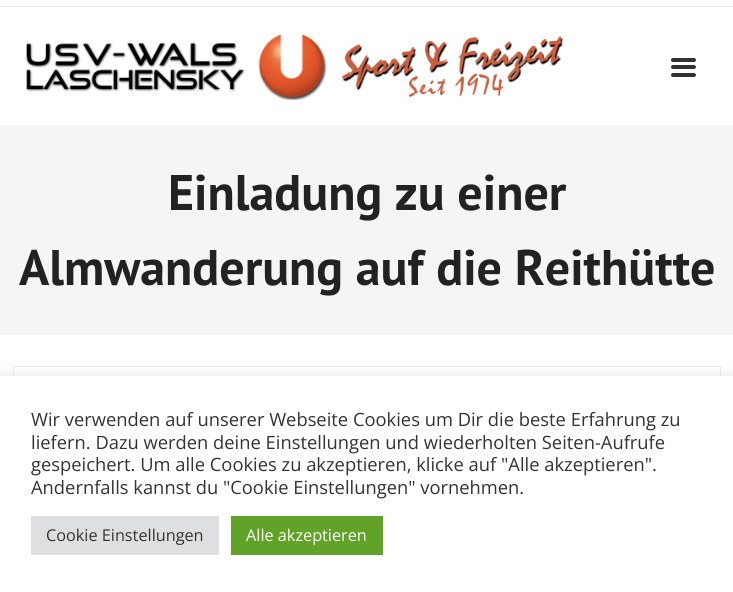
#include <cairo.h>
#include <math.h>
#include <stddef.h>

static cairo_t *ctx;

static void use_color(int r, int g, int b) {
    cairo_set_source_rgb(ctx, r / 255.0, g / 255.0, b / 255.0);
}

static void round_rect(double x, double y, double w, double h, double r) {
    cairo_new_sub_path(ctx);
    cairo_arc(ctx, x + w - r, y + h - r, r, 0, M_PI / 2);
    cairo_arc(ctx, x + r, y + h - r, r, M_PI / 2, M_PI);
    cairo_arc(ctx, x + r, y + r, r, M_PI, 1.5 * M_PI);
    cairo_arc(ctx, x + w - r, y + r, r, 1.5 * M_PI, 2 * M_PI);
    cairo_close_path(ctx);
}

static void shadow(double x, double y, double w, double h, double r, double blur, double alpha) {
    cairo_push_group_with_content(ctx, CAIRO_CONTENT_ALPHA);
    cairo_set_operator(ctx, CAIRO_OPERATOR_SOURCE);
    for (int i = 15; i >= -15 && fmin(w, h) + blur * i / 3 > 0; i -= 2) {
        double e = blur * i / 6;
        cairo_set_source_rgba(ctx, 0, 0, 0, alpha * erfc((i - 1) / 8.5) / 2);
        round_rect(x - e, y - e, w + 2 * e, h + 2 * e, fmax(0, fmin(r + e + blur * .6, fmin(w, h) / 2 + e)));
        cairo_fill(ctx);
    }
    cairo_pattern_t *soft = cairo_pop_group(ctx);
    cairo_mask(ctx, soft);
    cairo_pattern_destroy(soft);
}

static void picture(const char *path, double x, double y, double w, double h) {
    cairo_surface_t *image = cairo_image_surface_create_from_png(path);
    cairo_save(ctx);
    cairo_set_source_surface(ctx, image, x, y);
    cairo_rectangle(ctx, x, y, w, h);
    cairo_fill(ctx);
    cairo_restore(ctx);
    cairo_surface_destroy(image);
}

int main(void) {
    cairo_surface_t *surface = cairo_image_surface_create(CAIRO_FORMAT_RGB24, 733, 592);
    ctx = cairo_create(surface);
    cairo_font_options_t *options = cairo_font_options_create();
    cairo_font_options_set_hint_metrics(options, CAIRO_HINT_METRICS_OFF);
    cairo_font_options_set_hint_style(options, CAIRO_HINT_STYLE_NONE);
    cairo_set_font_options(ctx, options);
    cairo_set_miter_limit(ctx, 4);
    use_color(255, 255, 255);
    cairo_paint(ctx);
    use_color(238, 238, 238);
    cairo_rectangle(ctx, 0, 6, 733, 1);
    cairo_fill(ctx);
    picture("img1.png", 26, 34, 538, 66);
    use_color(51, 51, 51);
    round_rect(671, 58, 25, 4, 2);
    cairo_fill(ctx);
    round_rect(671, 65, 25, 4, 2);
    cairo_fill(ctx);
    round_rect(671, 73, 25, 4, 2);
    cairo_fill(ctx);
    use_color(245, 245, 245);
    cairo_rectangle(ctx, 0, 125, 733, 210);
    cairo_fill(ctx);
    cairo_select_font_face(ctx, "PT Sans", CAIRO_FONT_SLANT_NORMAL, CAIRO_FONT_WEIGHT_BOLD);
    cairo_set_font_size(ctx, 50);
    use_color(34, 34, 34);
    cairo_move_to(ctx, 168, 210);
    cairo_show_text(ctx, "Einladung zu einer");
    cairo_move_to(ctx, 19, 285);
    cairo_show_text(ctx, "Almwanderung auf die Reithütte");
    cairo_rectangle(ctx, 13.5, 366.5, 707, 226);
    use_color(238, 238, 238);
    cairo_set_line_width(ctx, 1);
    cairo_stroke(ctx);
    use_color(172, 171, 171);
    shadow(0, 375, 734, 216, 0, 6, 0.3);
    use_color(255, 255, 255);
    cairo_rectangle(ctx, 0, 376, 733, 216);
    cairo_fill(ctx);
    cairo_select_font_face(ctx, "Open Sans", CAIRO_FONT_SLANT_NORMAL, CAIRO_FONT_WEIGHT_NORMAL);
    cairo_set_font_size(ctx, 18.35);
    use_color(51, 51, 51);
    cairo_move_to(ctx, 31, 426);
    cairo_show_text(ctx, "Wir verwenden auf unserer Webseite Cookies um Dir die beste Erfahrung zu");
    cairo_move_to(ctx, 31, 449);
    cairo_show_text(ctx, "liefern. Dazu werden deine Einstellungen und wiederholten Seiten-Aufrufe");
    cairo_move_to(ctx, 31, 471);
    cairo_show_text(ctx, "gespeichert. Um alle Cookies zu akzeptieren, klicke auf \"Alle akzeptieren\".");
    cairo_move_to(ctx, 31, 494);
    cairo_show_text(ctx, "Andernfalls kannst du \"Cookie Einstellungen\" vornehmen.");
    use_color(222, 223, 224);
    cairo_rectangle(ctx, 31, 516, 188, 39);
    cairo_fill(ctx);
    cairo_set_font_size(ctx, 16.25);
    use_color(51, 51, 51);
    cairo_move_to(ctx, 46, 541);
    cairo_show_text(ctx, "Cookie Einstellungen");
    use_color(97, 162, 41);
    cairo_rectangle(ctx, 231, 516, 152, 39);
    cairo_fill(ctx);
    use_color(255, 255, 255);
    cairo_move_to(ctx, 246, 541);
    cairo_show_text(ctx, "Alle akzeptieren");
    cairo_surface_write_to_png(surface, "result.png");
    cairo_font_options_destroy(options);
    cairo_destroy(ctx);
    cairo_surface_destroy(surface);
    return 0;
}
